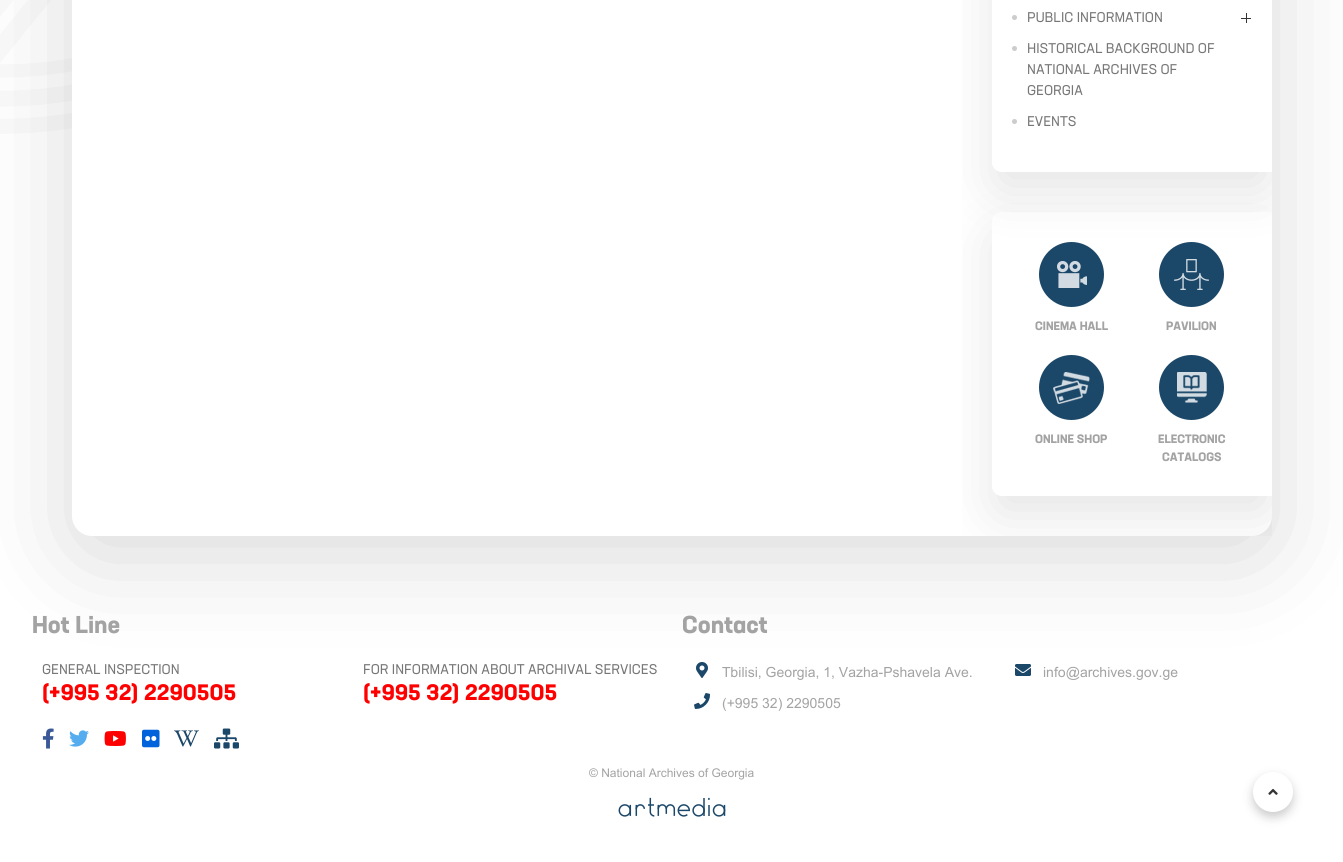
#include <cairo.h>
#include <math.h>
#include <stddef.h>

static cairo_t *ctx;

static void use_color(int r, int g, int b) {
    cairo_set_source_rgb(ctx, r / 255.0, g / 255.0, b / 255.0);
}

static void round_rect(double x, double y, double w, double h, double r) {
    cairo_new_sub_path(ctx);
    cairo_arc(ctx, x + w - r, y + h - r, r, 0, M_PI / 2);
    cairo_arc(ctx, x + r, y + h - r, r, M_PI / 2, M_PI);
    cairo_arc(ctx, x + r, y + r, r, M_PI, 1.5 * M_PI);
    cairo_arc(ctx, x + w - r, y + r, r, 1.5 * M_PI, 2 * M_PI);
    cairo_close_path(ctx);
}

static void shadow(double x, double y, double w, double h, double r, double blur, double alpha) {
    cairo_push_group_with_content(ctx, CAIRO_CONTENT_ALPHA);
    cairo_set_operator(ctx, CAIRO_OPERATOR_SOURCE);
    for (int i = 15; i >= -15 && fmin(w, h) + blur * i / 3 > 0; i -= 2) {
        double e = blur * i / 6;
        cairo_set_source_rgba(ctx, 0, 0, 0, alpha * erfc((i - 1) / 8.5) / 2);
        round_rect(x - e, y - e, w + 2 * e, h + 2 * e, fmax(0, fmin(r + e + blur * .6, fmin(w, h) / 2 + e)));
        cairo_fill(ctx);
    }
    cairo_pattern_t *soft = cairo_pop_group(ctx);
    cairo_mask(ctx, soft);
    cairo_pattern_destroy(soft);
}

static void picture(const char *path, double x, double y, double w, double h) {
    cairo_surface_t *image = cairo_image_surface_create_from_png(path);
    cairo_save(ctx);
    cairo_set_source_surface(ctx, image, x, y);
    cairo_rectangle(ctx, x, y, w, h);
    cairo_fill(ctx);
    cairo_restore(ctx);
    cairo_surface_destroy(image);
}

int main(void) {
    cairo_surface_t *surface = cairo_image_surface_create(CAIRO_FORMAT_RGB24, 1343, 862);
    ctx = cairo_create(surface);
    cairo_font_options_t *options = cairo_font_options_create();
    cairo_font_options_set_hint_metrics(options, CAIRO_HINT_METRICS_OFF);
    cairo_font_options_set_hint_style(options, CAIRO_HINT_STYLE_NONE);
    cairo_set_font_options(ctx, options);
    cairo_set_miter_limit(ctx, 4);
    use_color(255, 255, 255);
    cairo_paint(ctx);
    picture("img1.png", 0, 0, 72, 134);
    picture("img12.png", 696, 662, 12, 16);
    picture("img13.png", 1015, 664, 16, 12);
    picture("img14.png", 694, 693, 16, 16);
    use_color(0, 0, 0);
    shadow(72, -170, 1200, 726, 20, 50, 0.15);
    use_color(255, 255, 255);
    round_rect(72, -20, 1200, 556, 20);
    cairo_fill(ctx);
    cairo_save(ctx);
    cairo_new_path(ctx);
    cairo_move_to(ctx, 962, -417);
    cairo_line_to(ctx, 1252, -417);
    cairo_curve_to(ctx, 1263, -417, 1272, -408, 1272, -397);
    cairo_line_to(ctx, 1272, 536);
    cairo_line_to(ctx, 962, 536);
    cairo_close_path(ctx);
    cairo_clip(ctx);
    cairo_set_fill_rule(ctx, CAIRO_FILL_RULE_EVEN_ODD);
    cairo_new_path(ctx);
    cairo_move_to(ctx, 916, 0);
    cairo_line_to(ctx, 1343, 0);
    cairo_line_to(ctx, 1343, 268);
    cairo_line_to(ctx, 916, 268);
    cairo_close_path(ctx);
    cairo_move_to(ctx, 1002, -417);
    cairo_line_to(ctx, 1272, -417);
    cairo_line_to(ctx, 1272, 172);
    cairo_line_to(ctx, 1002, 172);
    cairo_curve_to(ctx, 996.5, 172, 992, 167.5, 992, 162);
    cairo_line_to(ctx, 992, -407);
    cairo_curve_to(ctx, 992, -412.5, 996.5, -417, 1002, -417);
    cairo_close_path(ctx);
    cairo_clip(ctx);
    use_color(0, 0, 0);
    shadow(992, -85, 280, 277, 10, 25, 0.1);
    cairo_restore(ctx);
    use_color(204, 204, 204);
    cairo_arc(ctx, 1014.5, 17.5, 2.5, 0, 2 * M_PI);
    cairo_fill(ctx);
    cairo_select_font_face(ctx, "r", CAIRO_FONT_SLANT_NORMAL, CAIRO_FONT_WEIGHT_NORMAL);
    cairo_set_font_size(ctx, 14);
    use_color(119, 119, 119);
    cairo_move_to(ctx, 1027, 22);
    cairo_show_text(ctx, "PUBLIC INFORMATION");
    use_color(53, 53, 53);
    cairo_rectangle(ctx, 1241, 18, 10, 1);
    cairo_fill(ctx);
    cairo_rectangle(ctx, 1246, 13, 1, 10);
    cairo_fill(ctx);
    use_color(204, 204, 204);
    cairo_arc(ctx, 1014.5, 48.5, 2.5, 0, 2 * M_PI);
    cairo_fill(ctx);
    use_color(119, 119, 119);
    cairo_move_to(ctx, 1027, 53);
    cairo_show_text(ctx, "HISTORICAL BACKGROUND OF");
    cairo_move_to(ctx, 1027, 74);
    cairo_show_text(ctx, "NATIONAL ARCHIVES OF");
    cairo_move_to(ctx, 1027, 95);
    cairo_show_text(ctx, "GEORGIA");
    use_color(204, 204, 204);
    cairo_new_path(ctx);
    cairo_arc(ctx, 1014.5, 121.5, 2.5, 0, 2 * M_PI);
    cairo_fill(ctx);
    use_color(119, 119, 119);
    cairo_move_to(ctx, 1027, 126);
    cairo_show_text(ctx, "EVENTS");
    cairo_save(ctx);
    cairo_new_path(ctx);
    cairo_move_to(ctx, 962, -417);
    cairo_line_to(ctx, 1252, -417);
    cairo_curve_to(ctx, 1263, -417, 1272, -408, 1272, -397);
    cairo_line_to(ctx, 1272, 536);
    cairo_line_to(ctx, 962, 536);
    cairo_close_path(ctx);
    cairo_clip(ctx);
    cairo_set_fill_rule(ctx, CAIRO_FILL_RULE_EVEN_ODD);
    cairo_new_path(ctx);
    cairo_move_to(ctx, 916, 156);
    cairo_line_to(ctx, 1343, 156);
    cairo_line_to(ctx, 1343, 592);
    cairo_line_to(ctx, 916, 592);
    cairo_close_path(ctx);
    cairo_move_to(ctx, 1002, 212);
    cairo_line_to(ctx, 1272, 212);
    cairo_line_to(ctx, 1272, 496);
    cairo_line_to(ctx, 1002, 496);
    cairo_curve_to(ctx, 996.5, 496, 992, 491.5, 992, 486);
    cairo_line_to(ctx, 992, 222);
    cairo_curve_to(ctx, 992, 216.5, 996.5, 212, 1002, 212);
    cairo_close_path(ctx);
    cairo_clip(ctx);
    use_color(0, 0, 0);
    shadow(992, 232, 280, 284, 10, 25, 0.1);
    cairo_restore(ctx);
    use_color(27, 71, 105);
    cairo_arc(ctx, 1071.5, 274.5, 32.5, 0, 2 * M_PI);
    cairo_fill(ctx);
    picture("img2.png", 1057, 261, 30, 27);
    cairo_select_font_face(ctx, "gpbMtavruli", CAIRO_FONT_SLANT_NORMAL, CAIRO_FONT_WEIGHT_BOLD);
    cairo_set_font_size(ctx, 12);
    use_color(163, 163, 163);
    cairo_move_to(ctx, 1035, 330);
    cairo_show_text(ctx, "CINEMA HALL");
    use_color(27, 71, 105);
    cairo_new_path(ctx);
    cairo_arc(ctx, 1191.5, 274.5, 32.5, 0, 2 * M_PI);
    cairo_fill(ctx);
    picture("img3.png", 1174, 259, 35, 31);
    use_color(163, 163, 163);
    cairo_move_to(ctx, 1166, 330);
    cairo_show_text(ctx, "PAVILION");
    use_color(27, 71, 105);
    cairo_new_path(ctx);
    cairo_arc(ctx, 1071.5, 387.5, 32.5, 0, 2 * M_PI);
    cairo_fill(ctx);
    picture("img4.png", 1053, 372, 37, 32);
    use_color(163, 163, 163);
    cairo_move_to(ctx, 1035, 443);
    cairo_show_text(ctx, "ONLINE SHOP");
    use_color(27, 71, 105);
    cairo_new_path(ctx);
    cairo_arc(ctx, 1191.5, 387.5, 32.5, 0, 2 * M_PI);
    cairo_fill(ctx);
    picture("img5.png", 1177, 372, 30, 31);
    use_color(163, 163, 163);
    cairo_move_to(ctx, 1158, 443);
    cairo_show_text(ctx, "ELECTRONIC");
    cairo_move_to(ctx, 1162, 461);
    cairo_show_text(ctx, "CATALOGS");
    cairo_set_font_size(ctx, 24);
    cairo_move_to(ctx, 32, 633);
    cairo_show_text(ctx, "Hot Line");
    cairo_select_font_face(ctx, "r", CAIRO_FONT_SLANT_NORMAL, CAIRO_FONT_WEIGHT_NORMAL);
    cairo_set_font_size(ctx, 14);
    use_color(119, 119, 119);
    cairo_move_to(ctx, 42, 674);
    cairo_show_text(ctx, "GENERAL INSPECTION");
    cairo_select_font_face(ctx, "gpbMtavruli", CAIRO_FONT_SLANT_NORMAL, CAIRO_FONT_WEIGHT_BOLD);
    cairo_set_font_size(ctx, 22);
    use_color(255, 0, 0);
    cairo_move_to(ctx, 42, 700);
    cairo_show_text(ctx, "(+995 32) 2290505");
    cairo_select_font_face(ctx, "r", CAIRO_FONT_SLANT_NORMAL, CAIRO_FONT_WEIGHT_NORMAL);
    cairo_set_font_size(ctx, 14);
    use_color(119, 119, 119);
    cairo_move_to(ctx, 363, 674);
    cairo_show_text(ctx, "FOR INFORMATION ABOUT ARCHIVAL SERVICES");
    cairo_select_font_face(ctx, "gpbMtavruli", CAIRO_FONT_SLANT_NORMAL, CAIRO_FONT_WEIGHT_BOLD);
    cairo_set_font_size(ctx, 22);
    use_color(255, 0, 0);
    cairo_move_to(ctx, 363, 700);
    cairo_show_text(ctx, "(+995 32) 2290505");
    picture("img6.png", 42, 728, 12, 21);
    picture("img7.png", 69, 730, 20, 17);
    picture("img8.png", 104, 731, 22, 15);
    picture("img9.png", 142, 729, 18, 19);
    picture("img10.png", 174, 730, 25, 17);
    picture("img11.png", 214, 728, 25, 21);
    cairo_set_font_size(ctx, 24);
    use_color(163, 163, 163);
    cairo_move_to(ctx, 682, 633);
    cairo_show_text(ctx, "Contact");
    cairo_select_font_face(ctx, "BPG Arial", CAIRO_FONT_SLANT_NORMAL, CAIRO_FONT_WEIGHT_NORMAL);
    cairo_set_font_size(ctx, 14);
    cairo_move_to(ctx, 722, 677);
    cairo_show_text(ctx, "Tbilisi, Georgia, 1, Vazha-Pshavela Ave.");
    cairo_move_to(ctx, 1043, 677);
    cairo_show_text(ctx, "info@archives.gov.ge");
    cairo_move_to(ctx, 722, 708);
    cairo_show_text(ctx, "(+995 32) 2290505");
    cairo_set_font_size(ctx, 12);
    cairo_move_to(ctx, 589, 777);
    cairo_show_text(ctx, "© National Archives of Georgia");
    picture("img15.png", 618, 797, 108, 20);
    use_color(0, 0, 0);
    shadow(1253, 777, 40, 40, 20, 5, 0.2);
    use_color(255, 255, 255);
    cairo_arc(ctx, 1273, 792, 20, 0, 2 * M_PI);
    cairo_fill(ctx);
    picture("img16.png", 1268, 788, 10, 7);
    cairo_surface_write_to_png(surface, "result.png");
    cairo_font_options_destroy(options);
    cairo_destroy(ctx);
    cairo_surface_destroy(surface);
    return 0;
}
